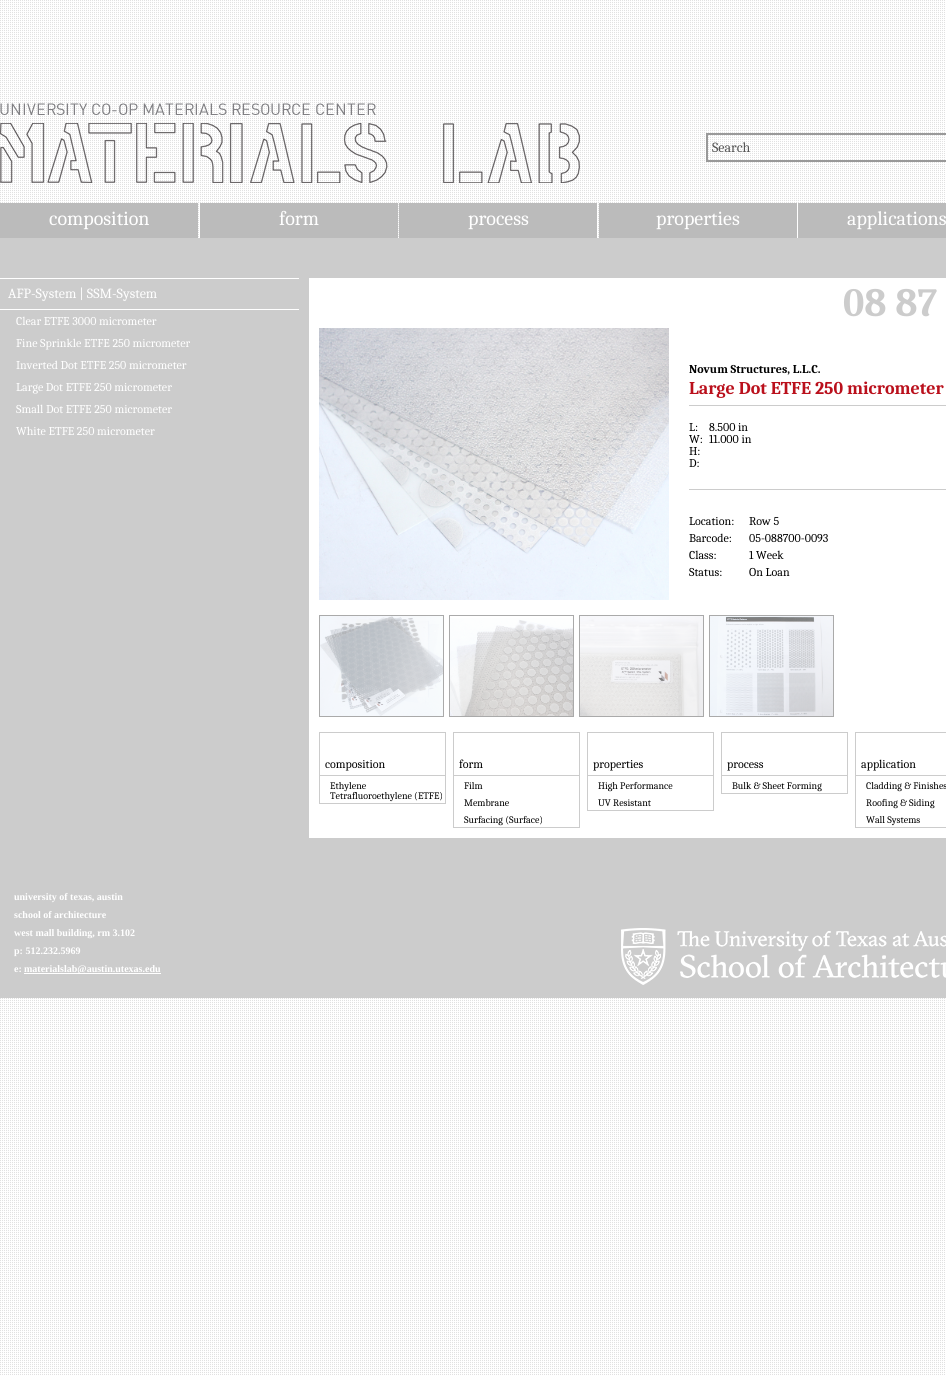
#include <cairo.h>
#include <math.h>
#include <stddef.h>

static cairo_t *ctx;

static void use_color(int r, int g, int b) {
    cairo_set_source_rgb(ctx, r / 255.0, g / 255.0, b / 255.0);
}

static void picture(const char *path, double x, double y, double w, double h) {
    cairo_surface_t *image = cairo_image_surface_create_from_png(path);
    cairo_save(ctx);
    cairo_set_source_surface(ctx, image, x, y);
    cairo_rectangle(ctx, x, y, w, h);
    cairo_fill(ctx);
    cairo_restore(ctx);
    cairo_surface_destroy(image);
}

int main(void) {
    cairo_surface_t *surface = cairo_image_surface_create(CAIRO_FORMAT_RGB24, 946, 1375);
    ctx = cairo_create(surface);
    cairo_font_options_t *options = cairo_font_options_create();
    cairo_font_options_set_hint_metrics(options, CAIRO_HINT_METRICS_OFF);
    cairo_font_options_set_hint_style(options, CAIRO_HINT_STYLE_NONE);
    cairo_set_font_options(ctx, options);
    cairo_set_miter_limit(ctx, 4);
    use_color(255, 255, 255);
    cairo_paint(ctx);
    picture("img1.png", 0, 0, 945, 1375);
    picture("img2.png", 0, 103, 580, 80);
    picture("img3.png", 708, 135, 237, 25);
    cairo_rectangle(ctx, 707, 134, 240, 27);
    use_color(153, 153, 153);
    cairo_stroke(ctx);
    cairo_select_font_face(ctx, "Caladea", CAIRO_FONT_SLANT_NORMAL, CAIRO_FONT_WEIGHT_NORMAL);
    cairo_set_font_size(ctx, 14);
    use_color(85, 85, 85);
    cairo_move_to(ctx, 712, 152);
    cairo_show_text(ctx, "Search");
    use_color(187, 187, 187);
    cairo_rectangle(ctx, 0, 203, 198, 35);
    cairo_fill(ctx);
    cairo_set_font_size(ctx, 20);
    use_color(255, 255, 255);
    cairo_move_to(ctx, 49, 225);
    cairo_show_text(ctx, "composition");
    use_color(187, 187, 187);
    cairo_rectangle(ctx, 200, 203, 198, 35);
    cairo_fill(ctx);
    use_color(255, 255, 255);
    cairo_move_to(ctx, 279, 225);
    cairo_show_text(ctx, "form");
    use_color(187, 187, 187);
    cairo_rectangle(ctx, 399, 203, 198, 35);
    cairo_fill(ctx);
    use_color(255, 255, 255);
    cairo_move_to(ctx, 468, 225);
    cairo_show_text(ctx, "process");
    use_color(187, 187, 187);
    cairo_rectangle(ctx, 599, 203, 198, 35);
    cairo_fill(ctx);
    use_color(255, 255, 255);
    cairo_move_to(ctx, 656, 225);
    cairo_show_text(ctx, "properties");
    use_color(187, 187, 187);
    cairo_rectangle(ctx, 798, 203, 148, 35);
    cairo_fill(ctx);
    use_color(255, 255, 255);
    cairo_move_to(ctx, 847, 225);
    cairo_show_text(ctx, "applications");
    use_color(204, 204, 204);
    cairo_rectangle(ctx, 0, 238, 946, 760);
    cairo_fill(ctx);
    use_color(255, 255, 255);
    cairo_rectangle(ctx, 0, 278, 299, 1);
    cairo_fill(ctx);
    cairo_rectangle(ctx, 0, 309, 299, 1);
    cairo_fill(ctx);
    cairo_set_font_size(ctx, 14);
    cairo_move_to(ctx, 8, 298);
    cairo_show_text(ctx, "AFP-System | SSM-System");
    cairo_set_font_size(ctx, 12);
    cairo_move_to(ctx, 16, 325);
    cairo_show_text(ctx, "Clear ETFE 3000 micrometer");
    cairo_move_to(ctx, 16, 347);
    cairo_show_text(ctx, "Fine Sprinkle ETFE 250 micrometer");
    cairo_move_to(ctx, 16, 369);
    cairo_show_text(ctx, "Inverted Dot ETFE 250 micrometer");
    cairo_move_to(ctx, 16, 391);
    cairo_show_text(ctx, "Large Dot ETFE 250 micrometer");
    cairo_move_to(ctx, 16, 413);
    cairo_show_text(ctx, "Small Dot ETFE 250 micrometer");
    cairo_move_to(ctx, 16, 435);
    cairo_show_text(ctx, "White ETFE 250 micrometer");
    cairo_rectangle(ctx, 309, 278, 637, 560);
    cairo_fill(ctx);
    cairo_select_font_face(ctx, "Caladea", CAIRO_FONT_SLANT_NORMAL, CAIRO_FONT_WEIGHT_BOLD);
    cairo_set_font_size(ctx, 40);
    use_color(204, 204, 204);
    cairo_move_to(ctx, 843, 316);
    cairo_show_text(ctx, "08 87");
    picture("img4.png", 319, 328, 350, 272);
    cairo_set_font_size(ctx, 12);
    use_color(0, 0, 0);
    cairo_move_to(ctx, 689, 373);
    cairo_show_text(ctx, "Novum Structures, L.L.C.");
    cairo_set_font_size(ctx, 18);
    use_color(186, 16, 28);
    cairo_move_to(ctx, 689, 394);
    cairo_show_text(ctx, "Large Dot ETFE 250 micrometer");
    use_color(204, 204, 204);
    cairo_rectangle(ctx, 689, 405, 257, 1);
    cairo_fill(ctx);
    cairo_select_font_face(ctx, "Caladea", CAIRO_FONT_SLANT_NORMAL, CAIRO_FONT_WEIGHT_NORMAL);
    cairo_set_font_size(ctx, 12);
    use_color(0, 0, 0);
    cairo_move_to(ctx, 689, 431);
    cairo_show_text(ctx, "L:");
    cairo_move_to(ctx, 709, 431);
    cairo_show_text(ctx, "8.500 in");
    cairo_move_to(ctx, 689, 443);
    cairo_show_text(ctx, "W:");
    cairo_move_to(ctx, 709, 443);
    cairo_show_text(ctx, "11.000 in");
    cairo_move_to(ctx, 689, 455);
    cairo_show_text(ctx, "H:");
    cairo_move_to(ctx, 689, 467);
    cairo_show_text(ctx, "D:");
    use_color(204, 204, 204);
    cairo_rectangle(ctx, 689, 489, 257, 1);
    cairo_fill(ctx);
    use_color(0, 0, 0);
    cairo_move_to(ctx, 689, 525);
    cairo_show_text(ctx, "Location:");
    cairo_move_to(ctx, 689, 542);
    cairo_show_text(ctx, "Barcode:");
    cairo_move_to(ctx, 689, 559);
    cairo_show_text(ctx, "Class:");
    cairo_move_to(ctx, 689, 576);
    cairo_show_text(ctx, "Status:");
    cairo_move_to(ctx, 749, 525);
    cairo_show_text(ctx, "Row 5");
    cairo_move_to(ctx, 749, 542);
    cairo_show_text(ctx, "05-088700-0093");
    cairo_move_to(ctx, 749, 559);
    cairo_show_text(ctx, "1 Week");
    cairo_move_to(ctx, 749, 576);
    cairo_show_text(ctx, "On Loan");
    cairo_rectangle(ctx, 319.5, 615.5, 124, 101);
    use_color(170, 170, 170);
    cairo_set_line_width(ctx, 1);
    cairo_stroke(ctx);
    cairo_rectangle(ctx, 449.5, 615.5, 124, 101);
    cairo_stroke(ctx);
    cairo_rectangle(ctx, 579.5, 615.5, 124, 101);
    cairo_stroke(ctx);
    cairo_rectangle(ctx, 709.5, 615.5, 124, 101);
    cairo_stroke(ctx);
    picture("img5.png", 320, 616, 123, 100);
    picture("img6.png", 450, 618, 123, 98);
    picture("img7.png", 580, 616, 123, 100);
    picture("img8.png", 710, 616, 123, 100);
    cairo_rectangle(ctx, 319.5, 732.5, 126, 71);
    use_color(204, 204, 204);
    cairo_stroke(ctx);
    cairo_rectangle(ctx, 320, 775, 125, 1);
    cairo_fill(ctx);
    use_color(0, 0, 0);
    cairo_move_to(ctx, 325, 768);
    cairo_show_text(ctx, "composition");
    cairo_set_font_size(ctx, 10);
    cairo_move_to(ctx, 330, 789);
    cairo_show_text(ctx, "Ethylene");
    cairo_move_to(ctx, 330, 799);
    cairo_show_text(ctx, "Tetrafluoroethylene (ETFE)");
    cairo_rectangle(ctx, 453.5, 732.5, 126, 95);
    use_color(204, 204, 204);
    cairo_stroke(ctx);
    cairo_rectangle(ctx, 454, 775, 125, 1);
    cairo_fill(ctx);
    cairo_set_font_size(ctx, 12);
    use_color(0, 0, 0);
    cairo_move_to(ctx, 459, 768);
    cairo_show_text(ctx, "form");
    cairo_set_font_size(ctx, 10);
    cairo_move_to(ctx, 464, 789);
    cairo_show_text(ctx, "Film");
    cairo_move_to(ctx, 464, 806);
    cairo_show_text(ctx, "Membrane");
    cairo_move_to(ctx, 464, 823);
    cairo_show_text(ctx, "Surfacing (Surface)");
    cairo_rectangle(ctx, 587.5, 732.5, 126, 78);
    use_color(204, 204, 204);
    cairo_stroke(ctx);
    cairo_rectangle(ctx, 588, 775, 125, 1);
    cairo_fill(ctx);
    cairo_set_font_size(ctx, 12);
    use_color(0, 0, 0);
    cairo_move_to(ctx, 593, 768);
    cairo_show_text(ctx, "properties");
    cairo_set_font_size(ctx, 10);
    cairo_move_to(ctx, 598, 789);
    cairo_show_text(ctx, "High Performance");
    cairo_move_to(ctx, 598, 806);
    cairo_show_text(ctx, "UV Resistant");
    cairo_rectangle(ctx, 721.5, 732.5, 126, 61);
    use_color(204, 204, 204);
    cairo_stroke(ctx);
    cairo_rectangle(ctx, 722, 775, 125, 1);
    cairo_fill(ctx);
    cairo_set_font_size(ctx, 12);
    use_color(0, 0, 0);
    cairo_move_to(ctx, 727, 768);
    cairo_show_text(ctx, "process");
    cairo_set_font_size(ctx, 10);
    cairo_move_to(ctx, 732, 789);
    cairo_show_text(ctx, "Bulk & Sheet Forming");
    cairo_rectangle(ctx, 855.5, 732.5, 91, 95);
    use_color(204, 204, 204);
    cairo_stroke(ctx);
    cairo_rectangle(ctx, 856, 775, 90, 1);
    cairo_fill(ctx);
    cairo_set_font_size(ctx, 12);
    use_color(0, 0, 0);
    cairo_move_to(ctx, 861, 768);
    cairo_show_text(ctx, "application");
    cairo_set_font_size(ctx, 10);
    cairo_move_to(ctx, 866, 789);
    cairo_show_text(ctx, "Cladding & Finishes");
    cairo_move_to(ctx, 866, 806);
    cairo_show_text(ctx, "Roofing & Siding");
    cairo_move_to(ctx, 866, 823);
    cairo_show_text(ctx, "Wall Systems");
    cairo_select_font_face(ctx, "Liberation Serif", CAIRO_FONT_SLANT_NORMAL, CAIRO_FONT_WEIGHT_BOLD);
    use_color(255, 255, 255);
    cairo_move_to(ctx, 14, 900);
    cairo_show_text(ctx, "university of texas, austin");
    cairo_move_to(ctx, 14, 918);
    cairo_show_text(ctx, "school of architecture");
    cairo_move_to(ctx, 14, 936);
    cairo_show_text(ctx, "west mall building, rm 3.102");
    cairo_move_to(ctx, 14, 954);
    cairo_show_text(ctx, "p: 512.232.5969");
    cairo_move_to(ctx, 14, 972);
    cairo_show_text(ctx, "e:");
    cairo_rectangle(ctx, 24, 973, 137, 1);
    cairo_fill(ctx);
    cairo_move_to(ctx, 24, 972);
    cairo_show_text(ctx, "materialslab@austin.utexas.edu");
    picture("img9.png", 621, 928, 325, 57);
    cairo_surface_write_to_png(surface, "result.png");
    cairo_font_options_destroy(options);
    cairo_destroy(ctx);
    cairo_surface_destroy(surface);
    return 0;
}
